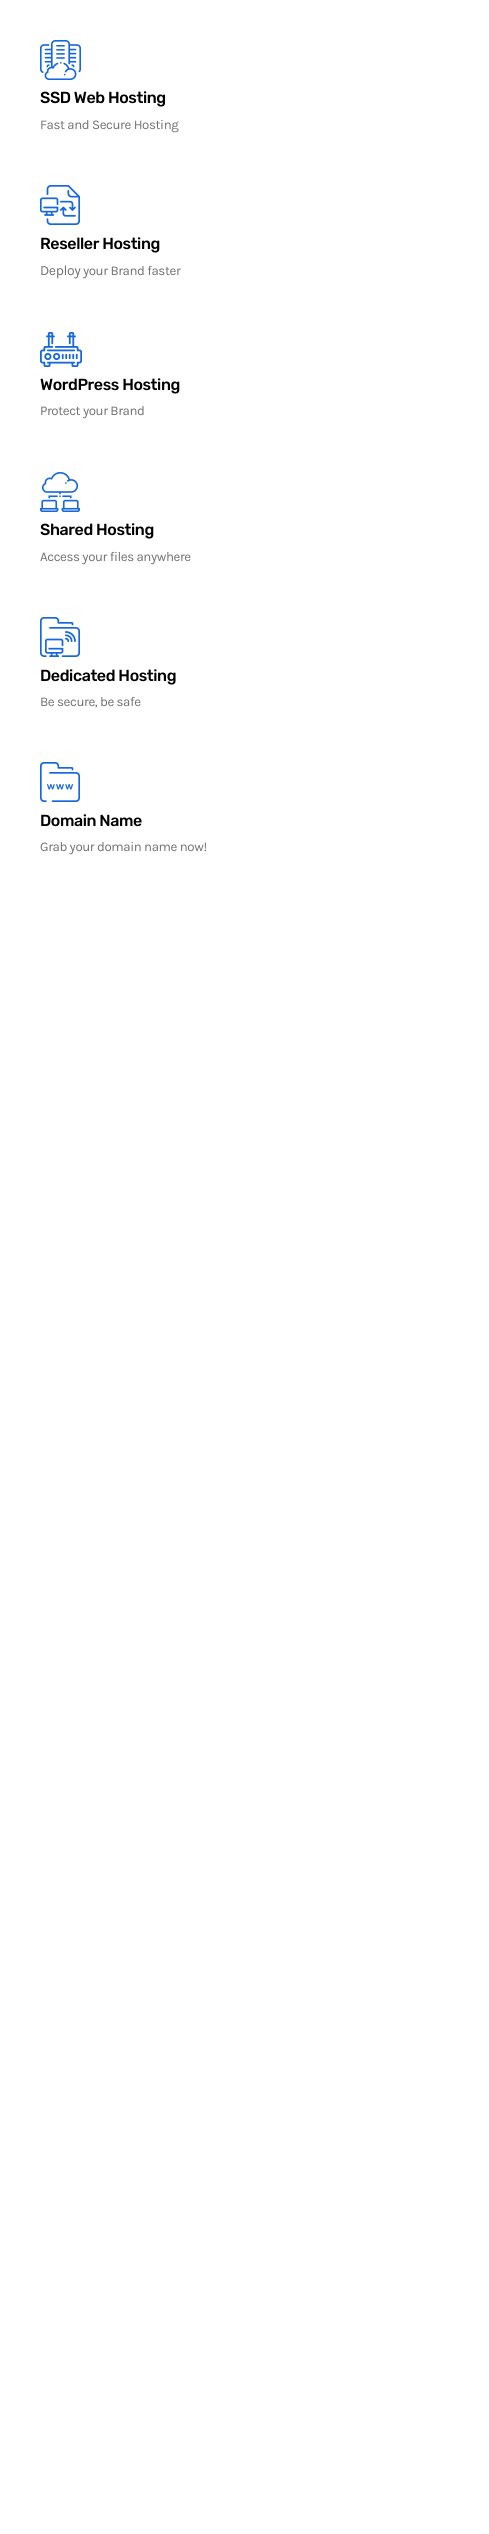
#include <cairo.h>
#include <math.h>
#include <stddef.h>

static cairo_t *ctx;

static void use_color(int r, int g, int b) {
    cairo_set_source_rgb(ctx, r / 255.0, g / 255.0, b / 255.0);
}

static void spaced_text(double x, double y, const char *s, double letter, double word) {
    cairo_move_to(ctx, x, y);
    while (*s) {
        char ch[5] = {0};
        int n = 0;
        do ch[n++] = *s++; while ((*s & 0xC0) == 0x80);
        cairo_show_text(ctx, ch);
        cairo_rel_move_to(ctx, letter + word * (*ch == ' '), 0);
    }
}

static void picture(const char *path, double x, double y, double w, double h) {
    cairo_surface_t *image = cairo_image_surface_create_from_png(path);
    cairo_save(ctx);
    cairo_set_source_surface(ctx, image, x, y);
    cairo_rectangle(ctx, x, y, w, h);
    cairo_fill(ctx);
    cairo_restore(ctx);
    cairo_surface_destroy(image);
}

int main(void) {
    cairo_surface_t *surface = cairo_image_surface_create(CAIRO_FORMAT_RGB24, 489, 2534);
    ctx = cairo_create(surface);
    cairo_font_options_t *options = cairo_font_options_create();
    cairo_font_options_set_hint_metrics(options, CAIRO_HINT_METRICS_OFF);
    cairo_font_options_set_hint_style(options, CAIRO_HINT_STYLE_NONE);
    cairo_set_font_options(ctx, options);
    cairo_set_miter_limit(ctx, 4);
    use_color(255, 255, 255);
    cairo_paint(ctx);
    picture("img1.png", 40, 40, 41, 40);
    cairo_select_font_face(ctx, "Rubik Medium", CAIRO_FONT_SLANT_NORMAL, CAIRO_FONT_WEIGHT_NORMAL);
    cairo_set_font_size(ctx, 16);
    use_color(0, 0, 0);
    spaced_text(40, 103, "SSD Web Hosting", -0.4, 0);
    cairo_select_font_face(ctx, "Karla", CAIRO_FONT_SLANT_NORMAL, CAIRO_FONT_WEIGHT_NORMAL);
    cairo_set_font_size(ctx, 13.25);
    use_color(112, 112, 112);
    spaced_text(40, 129, "Fast and Secure Hosting", -0.4, 0);
    picture("img2.png", 40, 185, 40, 40);
    cairo_select_font_face(ctx, "Rubik Medium", CAIRO_FONT_SLANT_NORMAL, CAIRO_FONT_WEIGHT_NORMAL);
    cairo_set_font_size(ctx, 16);
    use_color(0, 0, 0);
    spaced_text(40, 249, "Reseller Hosting", -0.4, 0);
    cairo_select_font_face(ctx, "Karla", CAIRO_FONT_SLANT_NORMAL, CAIRO_FONT_WEIGHT_NORMAL);
    cairo_set_font_size(ctx, 14);
    use_color(112, 112, 112);
    spaced_text(40, 275, "Deploy", -0.4, 0);
    cairo_set_font_size(ctx, 13.25);
    spaced_text(83, 275, "your Brand faster", -0.4, 0);
    picture("img3.png", 40, 332, 42, 35);
    cairo_select_font_face(ctx, "Rubik Medium", CAIRO_FONT_SLANT_NORMAL, CAIRO_FONT_WEIGHT_NORMAL);
    cairo_set_font_size(ctx, 16);
    use_color(0, 0, 0);
    spaced_text(40, 390, "WordPress Hosting", -0.4, 0);
    cairo_select_font_face(ctx, "Karla", CAIRO_FONT_SLANT_NORMAL, CAIRO_FONT_WEIGHT_NORMAL);
    cairo_set_font_size(ctx, 13.25);
    use_color(112, 112, 112);
    spaced_text(40, 415, "Protect your Brand", -0.4, 0);
    picture("img4.png", 40, 472, 40, 40);
    cairo_select_font_face(ctx, "Rubik Medium", CAIRO_FONT_SLANT_NORMAL, CAIRO_FONT_WEIGHT_NORMAL);
    cairo_set_font_size(ctx, 16);
    use_color(0, 0, 0);
    spaced_text(40, 535, "Shared Hosting", -0.4, 0);
    cairo_select_font_face(ctx, "Karla", CAIRO_FONT_SLANT_NORMAL, CAIRO_FONT_WEIGHT_NORMAL);
    cairo_set_font_size(ctx, 13.25);
    use_color(112, 112, 112);
    spaced_text(40, 561, "Access your files anywhere", -0.4, 0);
    picture("img5.png", 40, 617, 40, 40);
    cairo_select_font_face(ctx, "Rubik Medium", CAIRO_FONT_SLANT_NORMAL, CAIRO_FONT_WEIGHT_NORMAL);
    cairo_set_font_size(ctx, 16);
    use_color(0, 0, 0);
    spaced_text(40, 681, "Dedicated Hosting", -0.4, 0);
    cairo_select_font_face(ctx, "Karla", CAIRO_FONT_SLANT_NORMAL, CAIRO_FONT_WEIGHT_NORMAL);
    cairo_set_font_size(ctx, 13.25);
    use_color(112, 112, 112);
    spaced_text(40, 706, "Be secure, be safe", -0.4, 0);
    picture("img6.png", 40, 762, 40, 40);
    cairo_select_font_face(ctx, "Rubik Medium", CAIRO_FONT_SLANT_NORMAL, CAIRO_FONT_WEIGHT_NORMAL);
    cairo_set_font_size(ctx, 16);
    use_color(0, 0, 0);
    spaced_text(40, 826, "Domain Name", -0.4, 0);
    cairo_select_font_face(ctx, "Karla", CAIRO_FONT_SLANT_NORMAL, CAIRO_FONT_WEIGHT_NORMAL);
    cairo_set_font_size(ctx, 13.25);
    use_color(112, 112, 112);
    spaced_text(40, 851, "Grab your domain name now!", -0.4, 0);
    cairo_surface_write_to_png(surface, "result.png");
    cairo_font_options_destroy(options);
    cairo_destroy(ctx);
    cairo_surface_destroy(surface);
    return 0;
}
